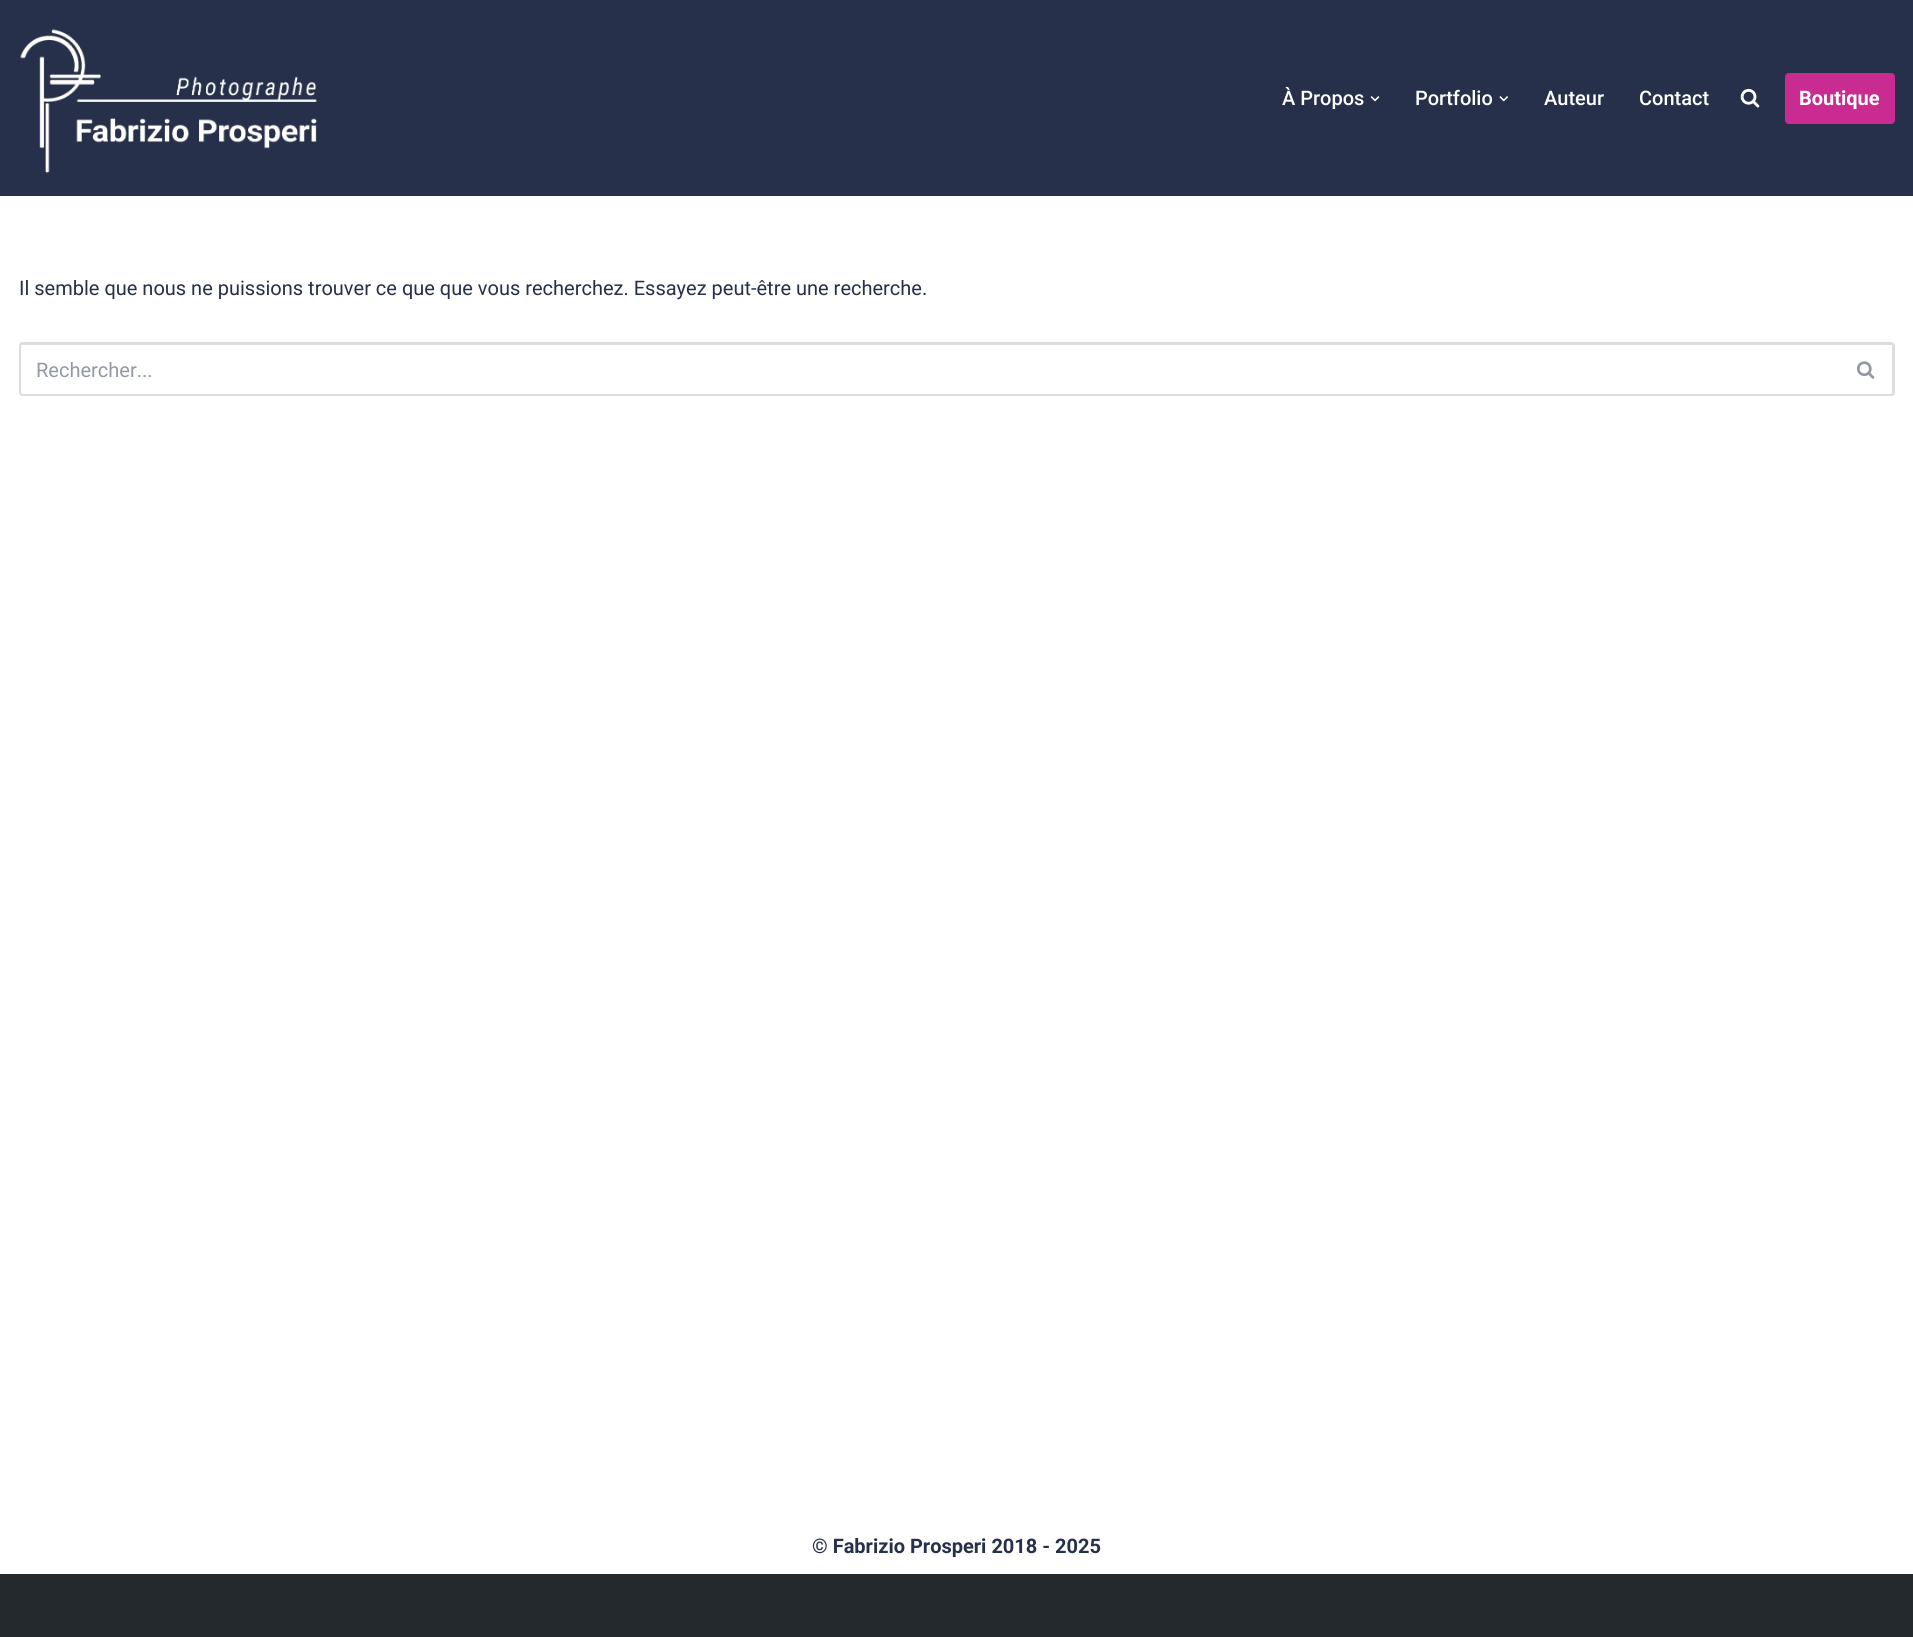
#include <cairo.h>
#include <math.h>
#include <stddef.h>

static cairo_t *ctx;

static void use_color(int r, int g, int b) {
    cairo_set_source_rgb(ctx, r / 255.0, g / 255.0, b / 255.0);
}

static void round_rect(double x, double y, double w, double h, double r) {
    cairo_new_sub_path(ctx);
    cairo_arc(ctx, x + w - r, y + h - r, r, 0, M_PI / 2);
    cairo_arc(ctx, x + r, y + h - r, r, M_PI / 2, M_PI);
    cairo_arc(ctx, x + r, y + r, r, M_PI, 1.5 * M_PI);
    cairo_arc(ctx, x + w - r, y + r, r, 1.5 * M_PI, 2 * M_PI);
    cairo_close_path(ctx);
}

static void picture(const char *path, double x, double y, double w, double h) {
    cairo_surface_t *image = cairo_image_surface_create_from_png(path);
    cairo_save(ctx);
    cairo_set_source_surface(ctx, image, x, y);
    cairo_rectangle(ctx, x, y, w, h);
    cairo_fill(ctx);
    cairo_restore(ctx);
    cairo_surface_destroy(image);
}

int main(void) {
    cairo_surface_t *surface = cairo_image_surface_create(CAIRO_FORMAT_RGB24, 1913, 1637);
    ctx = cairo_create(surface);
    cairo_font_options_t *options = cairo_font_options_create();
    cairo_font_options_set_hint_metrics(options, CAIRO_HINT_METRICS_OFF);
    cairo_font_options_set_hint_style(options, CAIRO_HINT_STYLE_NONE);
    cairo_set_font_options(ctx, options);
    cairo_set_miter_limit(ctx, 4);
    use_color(255, 255, 255);
    cairo_paint(ctx);
    use_color(39, 48, 74);
    cairo_rectangle(ctx, 0, 0, 1913, 196);
    cairo_fill(ctx);
    picture("img1.png", 20, 29, 297, 144);
    cairo_select_font_face(ctx, "Roboto Medium", CAIRO_FONT_SLANT_NORMAL, CAIRO_FONT_WEIGHT_NORMAL);
    cairo_set_font_size(ctx, 20);
    use_color(255, 255, 255);
    cairo_move_to(ctx, 1282, 105);
    cairo_show_text(ctx, "À Propos");
    picture("img2.png", 1370, 96, 10, 6);
    cairo_move_to(ctx, 1415, 105);
    cairo_show_text(ctx, "Portfolio");
    picture("img3.png", 1499, 96, 9, 6);
    cairo_move_to(ctx, 1544, 105);
    cairo_show_text(ctx, "Auteur");
    cairo_move_to(ctx, 1639, 105);
    cairo_show_text(ctx, "Contact");
    picture("img4.png", 1740, 88, 20, 20);
    use_color(202, 43, 145);
    round_rect(1785, 73, 110, 51, 4);
    cairo_fill(ctx);
    cairo_select_font_face(ctx, "Roboto", CAIRO_FONT_SLANT_NORMAL, CAIRO_FONT_WEIGHT_BOLD);
    use_color(255, 255, 255);
    cairo_move_to(ctx, 1799, 105);
    cairo_show_text(ctx, "Boutique");
    cairo_select_font_face(ctx, "Roboto", CAIRO_FONT_SLANT_NORMAL, CAIRO_FONT_WEIGHT_NORMAL);
    use_color(39, 48, 74);
    cairo_move_to(ctx, 19, 295);
    cairo_show_text(ctx, "Il semble que nous ne puissions trouver ce que que vous recherchez. Essayez peut-être une recherche.");
    use_color(221, 221, 221);
    cairo_set_fill_rule(ctx, CAIRO_FILL_RULE_EVEN_ODD);
    cairo_new_path(ctx);
    cairo_move_to(ctx, 22, 342);
    cairo_line_to(ctx, 1839, 342);
    cairo_line_to(ctx, 1839, 396);
    cairo_line_to(ctx, 22, 396);
    cairo_curve_to(ctx, 20, 396, 19, 395, 19, 392);
    cairo_line_to(ctx, 19, 346);
    cairo_curve_to(ctx, 19, 344, 20, 342, 22, 342);
    cairo_close_path(ctx);
    cairo_move_to(ctx, 22, 345);
    cairo_line_to(ctx, 1839, 345);
    cairo_line_to(ctx, 1839, 394);
    cairo_line_to(ctx, 22, 394);
    cairo_curve_to(ctx, 22, 394, 21, 393, 21, 392);
    cairo_line_to(ctx, 21, 346);
    cairo_curve_to(ctx, 21, 346, 22, 345, 22, 345);
    cairo_close_path(ctx);
    cairo_fill(ctx);
    use_color(147, 152, 165);
    cairo_move_to(ctx, 36, 377);
    cairo_show_text(ctx, "Rechercher...");
    use_color(221, 221, 221);
    cairo_new_path(ctx);
    cairo_move_to(ctx, 1839, 342);
    cairo_line_to(ctx, 1891, 342);
    cairo_curve_to(ctx, 1893, 342, 1895, 344, 1895, 346);
    cairo_line_to(ctx, 1895, 392);
    cairo_curve_to(ctx, 1895, 395, 1893, 396, 1891, 396);
    cairo_line_to(ctx, 1839, 396);
    cairo_close_path(ctx);
    cairo_move_to(ctx, 1839, 345);
    cairo_line_to(ctx, 1891, 345);
    cairo_curve_to(ctx, 1892, 345, 1892, 346, 1892, 346);
    cairo_line_to(ctx, 1892, 392);
    cairo_curve_to(ctx, 1892, 393, 1892, 394, 1891, 394);
    cairo_line_to(ctx, 1839, 394);
    cairo_close_path(ctx);
    cairo_fill(ctx);
    picture("img5.png", 1856, 361, 19, 18);
    cairo_select_font_face(ctx, "Roboto", CAIRO_FONT_SLANT_NORMAL, CAIRO_FONT_WEIGHT_BOLD);
    use_color(39, 48, 74);
    cairo_move_to(ctx, 812, 1553);
    cairo_show_text(ctx, "© Fabrizio Prosperi 2018 - 2025");
    use_color(36, 41, 46);
    cairo_rectangle(ctx, 0, 1574, 1913, 63);
    cairo_fill(ctx);
    cairo_surface_write_to_png(surface, "result.png");
    cairo_font_options_destroy(options);
    cairo_destroy(ctx);
    cairo_surface_destroy(surface);
    return 0;
}
